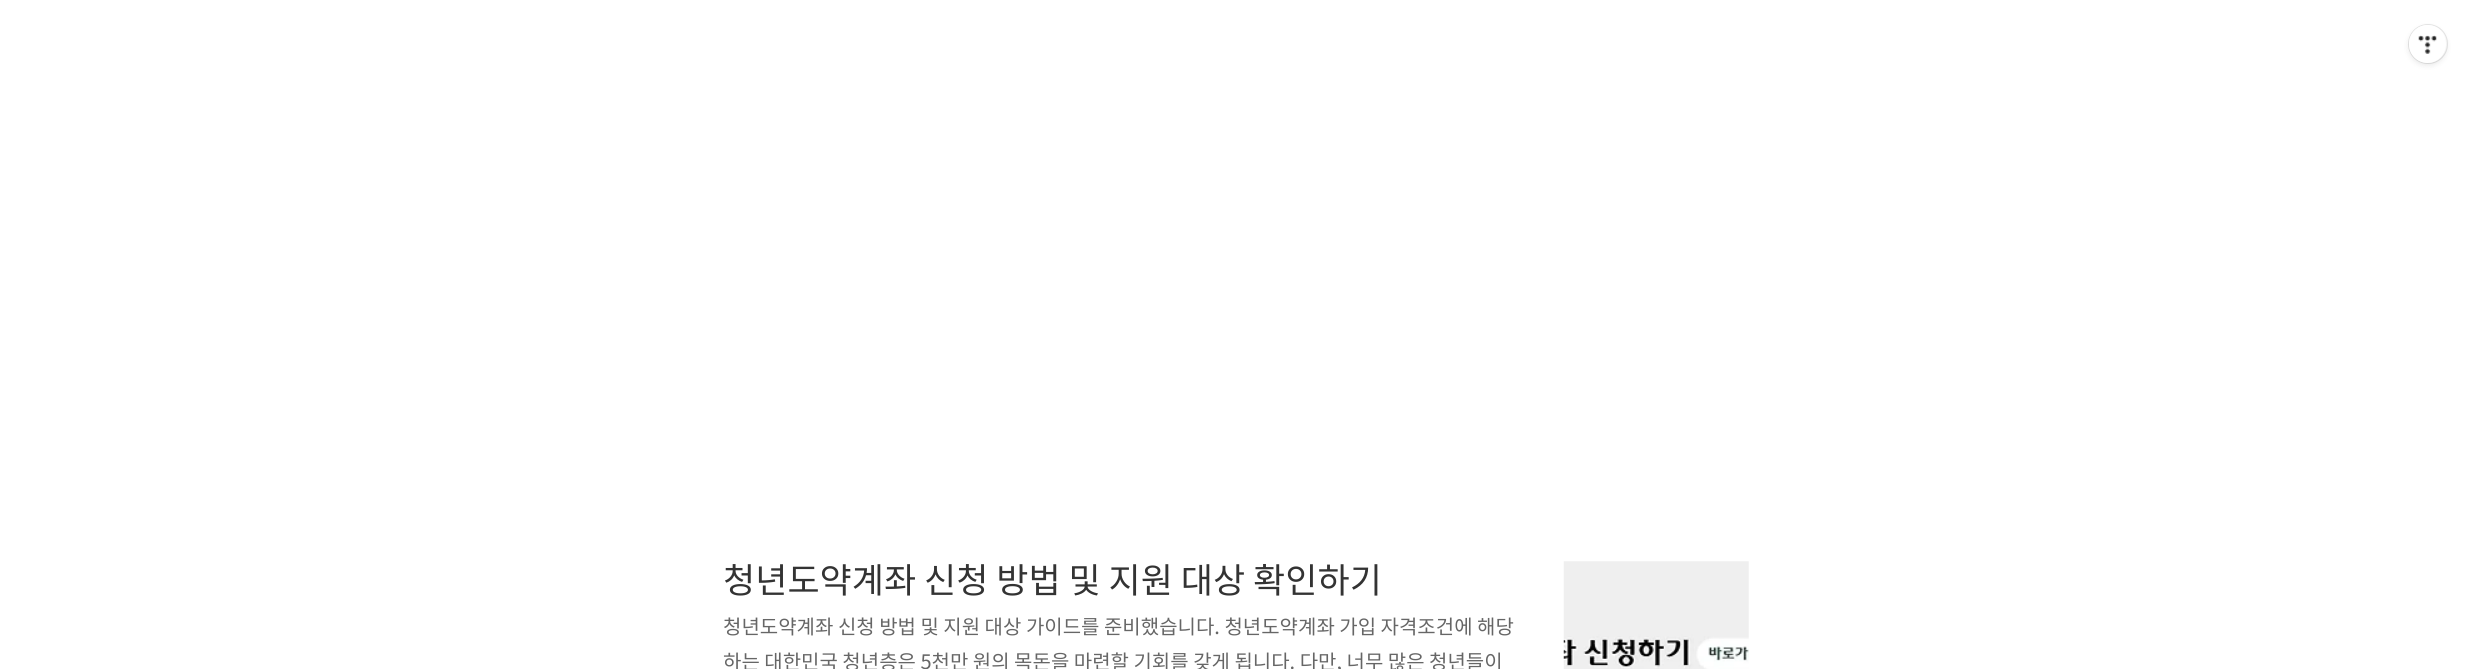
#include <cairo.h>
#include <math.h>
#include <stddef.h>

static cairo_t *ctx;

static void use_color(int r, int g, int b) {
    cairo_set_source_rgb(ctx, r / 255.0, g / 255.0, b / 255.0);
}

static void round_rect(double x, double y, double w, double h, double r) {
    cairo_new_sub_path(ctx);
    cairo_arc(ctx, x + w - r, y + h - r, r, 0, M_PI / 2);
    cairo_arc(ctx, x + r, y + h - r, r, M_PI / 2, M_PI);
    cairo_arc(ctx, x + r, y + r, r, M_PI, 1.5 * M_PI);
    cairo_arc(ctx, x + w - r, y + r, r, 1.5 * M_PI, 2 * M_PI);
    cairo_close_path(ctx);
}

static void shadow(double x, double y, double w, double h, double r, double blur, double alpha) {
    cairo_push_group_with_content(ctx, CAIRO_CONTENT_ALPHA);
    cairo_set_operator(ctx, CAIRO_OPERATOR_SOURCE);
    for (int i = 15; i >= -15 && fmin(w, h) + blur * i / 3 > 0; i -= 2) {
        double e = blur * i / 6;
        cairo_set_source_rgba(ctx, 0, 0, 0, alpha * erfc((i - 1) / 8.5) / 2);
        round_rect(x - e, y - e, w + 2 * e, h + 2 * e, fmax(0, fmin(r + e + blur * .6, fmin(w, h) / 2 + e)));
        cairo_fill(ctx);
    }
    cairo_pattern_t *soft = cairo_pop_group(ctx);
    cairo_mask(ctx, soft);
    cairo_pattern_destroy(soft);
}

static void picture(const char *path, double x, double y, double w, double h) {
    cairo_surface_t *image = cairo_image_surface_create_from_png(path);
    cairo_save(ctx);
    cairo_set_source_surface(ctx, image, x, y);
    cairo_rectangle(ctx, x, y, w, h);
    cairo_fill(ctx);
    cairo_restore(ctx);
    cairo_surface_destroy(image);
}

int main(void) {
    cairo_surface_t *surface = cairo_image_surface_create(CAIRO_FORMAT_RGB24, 2471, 669);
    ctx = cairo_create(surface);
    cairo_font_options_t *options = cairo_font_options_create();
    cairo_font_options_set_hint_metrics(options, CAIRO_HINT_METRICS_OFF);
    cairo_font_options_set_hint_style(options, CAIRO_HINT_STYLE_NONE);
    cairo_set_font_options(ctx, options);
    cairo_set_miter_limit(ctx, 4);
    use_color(255, 255, 255);
    cairo_paint(ctx);
    use_color(0, 0, 0);
    shadow(2409, 28, 37, 37, 18.5, 3, 0.1);
    cairo_arc(ctx, 2428, 44, 19.5, 0, 2 * M_PI);
    cairo_set_source_rgba(ctx, 0, 0, 0, 0.1);
    cairo_set_line_width(ctx, 1);
    cairo_stroke(ctx);
    use_color(255, 255, 255);
    round_rect(2409, 25, 37, 38, 18.5);
    cairo_fill(ctx);
    picture("img1.png", 2418, 35, 19, 19);
    cairo_select_font_face(ctx, "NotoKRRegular", CAIRO_FONT_SLANT_NORMAL, CAIRO_FONT_WEIGHT_NORMAL);
    cairo_set_font_size(ctx, 35);
    use_color(51, 51, 51);
    cairo_move_to(ctx, 723, 593);
    cairo_show_text(ctx, "청년도약계좌 신청 방법 및 지원 대상 확인하기");
    cairo_set_font_size(ctx, 20);
    use_color(102, 102, 102);
    cairo_move_to(ctx, 723, 634);
    cairo_show_text(ctx, "청년도약계좌 신청 방법 및 지원 대상 가이드를 준비했습니다. 청년도약계좌 가입 자격조건에 해당");
    cairo_move_to(ctx, 723, 669);
    cairo_show_text(ctx, "하는 대한민국 청년층은 5천만 원의 목돈을 마련할 기회를 갖게 됩니다. 다만, 너무 많은 청년들이");
    picture("img2.png", 1563, 561, 186, 108);
    cairo_surface_write_to_png(surface, "result.png");
    cairo_font_options_destroy(options);
    cairo_destroy(ctx);
    cairo_surface_destroy(surface);
    return 0;
}
